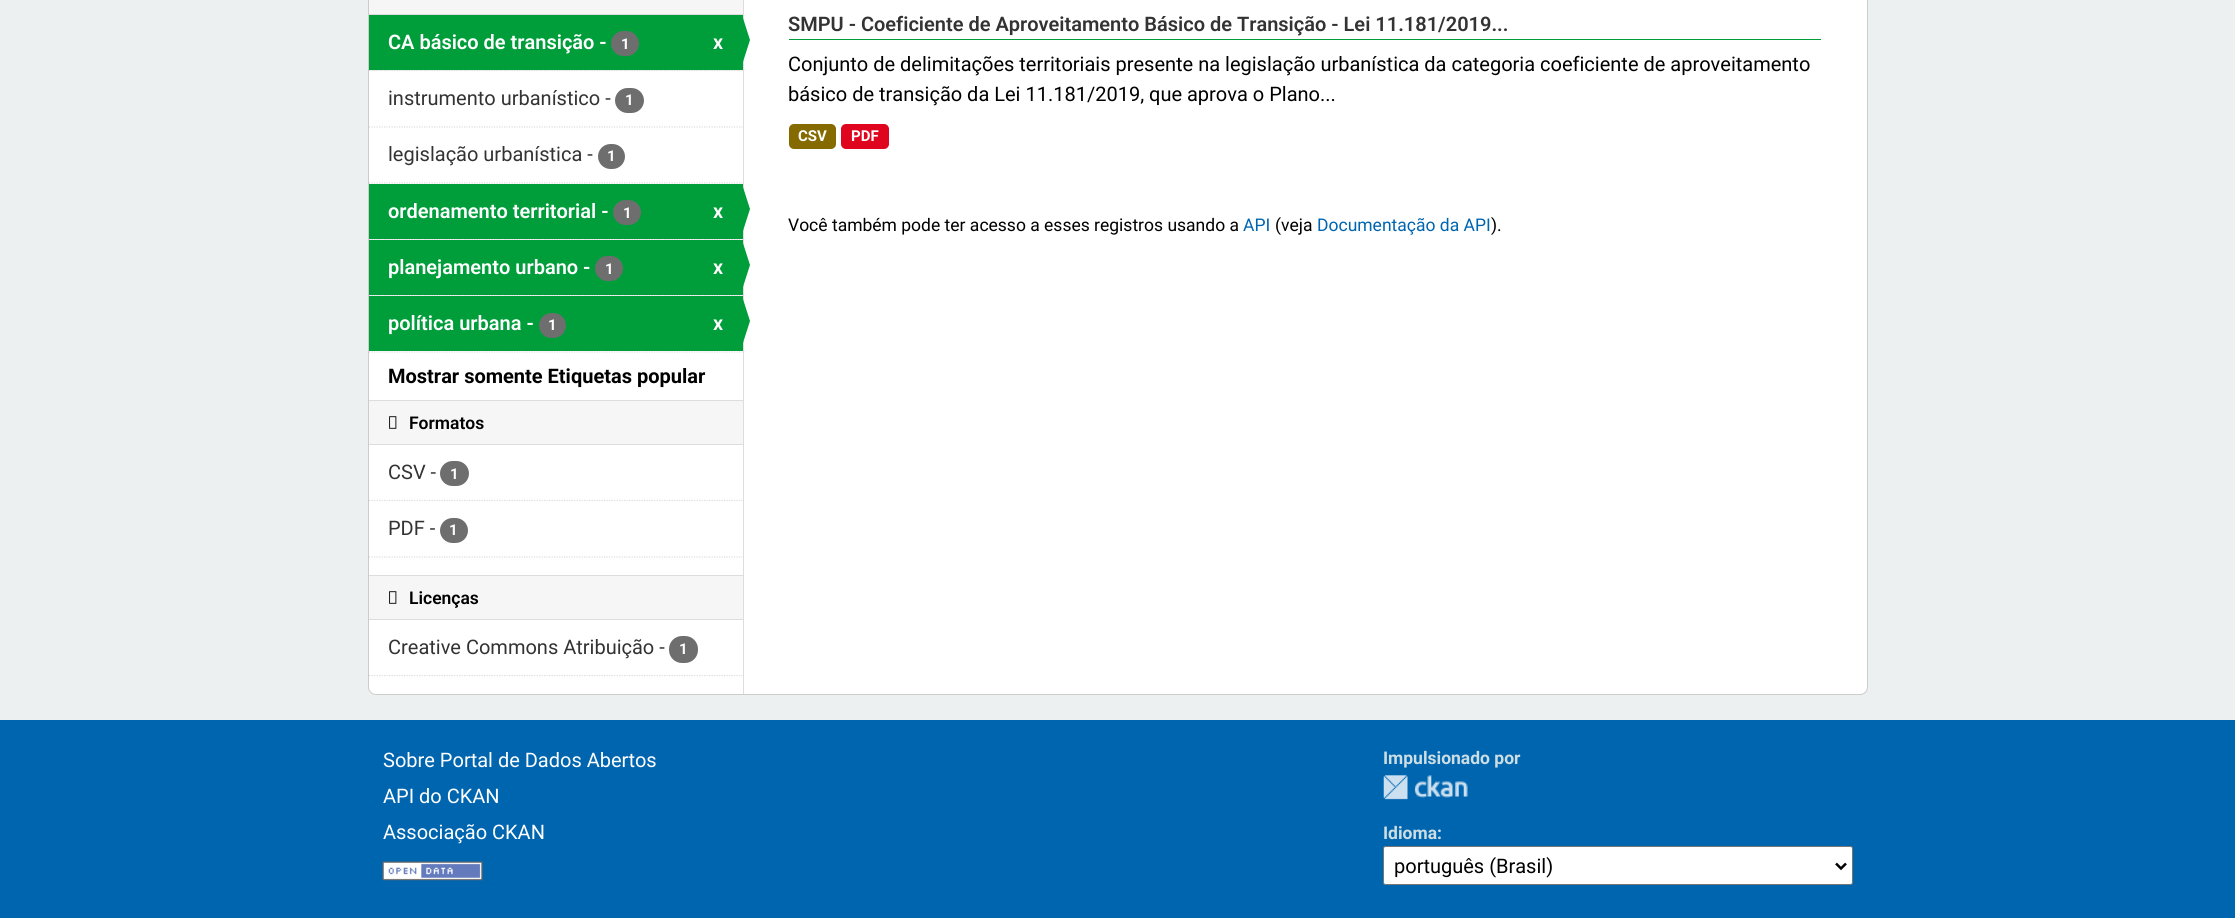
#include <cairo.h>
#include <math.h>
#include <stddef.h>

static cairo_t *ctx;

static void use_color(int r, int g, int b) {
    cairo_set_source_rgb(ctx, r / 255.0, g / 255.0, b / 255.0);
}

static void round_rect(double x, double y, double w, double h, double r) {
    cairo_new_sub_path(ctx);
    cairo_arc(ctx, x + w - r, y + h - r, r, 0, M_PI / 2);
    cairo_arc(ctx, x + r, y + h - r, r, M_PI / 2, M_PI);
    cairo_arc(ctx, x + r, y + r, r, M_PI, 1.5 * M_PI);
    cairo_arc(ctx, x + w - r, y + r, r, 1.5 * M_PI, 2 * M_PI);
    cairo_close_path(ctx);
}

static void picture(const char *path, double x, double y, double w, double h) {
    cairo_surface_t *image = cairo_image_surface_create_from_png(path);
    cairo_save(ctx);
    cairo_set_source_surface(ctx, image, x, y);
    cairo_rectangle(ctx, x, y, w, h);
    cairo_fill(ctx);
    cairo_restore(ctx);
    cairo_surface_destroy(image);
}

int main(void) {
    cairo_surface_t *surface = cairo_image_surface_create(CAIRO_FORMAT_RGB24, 2235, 918);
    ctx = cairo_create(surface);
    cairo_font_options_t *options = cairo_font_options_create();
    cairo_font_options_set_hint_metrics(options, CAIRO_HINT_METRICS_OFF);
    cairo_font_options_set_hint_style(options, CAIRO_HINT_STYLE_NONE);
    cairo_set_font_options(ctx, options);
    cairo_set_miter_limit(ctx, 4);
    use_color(236, 240, 241);
    cairo_paint(ctx);
    use_color(255, 255, 255);
    round_rect(368.5, -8.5, 1499, 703, 7.5);
    cairo_fill_preserve(ctx);
    use_color(204, 204, 204);
    cairo_set_line_width(ctx, 1);
    cairo_stroke(ctx);
    use_color(246, 246, 246);
    cairo_rectangle(ctx, 369, 0, 374, 14);
    cairo_fill(ctx);
    use_color(221, 221, 221);
    cairo_rectangle(ctx, 369, 14, 374, 1);
    cairo_fill(ctx);
    use_color(246, 246, 246);
    cairo_rectangle(ctx, 370, 70, 373, 1);
    cairo_fill(ctx);
    cairo_new_path(ctx);
    cairo_move_to(ctx, 369, 70.5);
    cairo_line_to(ctx, 742.5, 70.5);
    use_color(221, 221, 221);
    cairo_set_line_width(ctx, 1.2);
    cairo_set_dash(ctx, (double[]){1.25, 1.25}, 2, 0);
    cairo_stroke(ctx);
    use_color(0, 158, 59);
    cairo_rectangle(ctx, 369, 15, 374, 55);
    cairo_fill(ctx);
    cairo_select_font_face(ctx, "Roboto SemiBold", CAIRO_FONT_SLANT_NORMAL, CAIRO_FONT_WEIGHT_NORMAL);
    cairo_set_font_size(ctx, 20);
    use_color(255, 255, 255);
    cairo_move_to(ctx, 388, 49);
    cairo_show_text(ctx, "CA básico de transição -");
    use_color(110, 110, 110);
    round_rect(611, 31, 28, 25, 12.5);
    cairo_fill(ctx);
    cairo_select_font_face(ctx, "Roboto", CAIRO_FONT_SLANT_NORMAL, CAIRO_FONT_WEIGHT_BOLD);
    cairo_set_font_size(ctx, 15);
    use_color(255, 255, 255);
    cairo_move_to(ctx, 621, 49);
    cairo_show_text(ctx, "1");
    cairo_select_font_face(ctx, "Roboto SemiBold", CAIRO_FONT_SLANT_NORMAL, CAIRO_FONT_WEIGHT_NORMAL);
    cairo_set_font_size(ctx, 20);
    cairo_move_to(ctx, 713, 49);
    cairo_show_text(ctx, "x");
    use_color(221, 221, 221);
    cairo_rectangle(ctx, 743, 0, 1, 694);
    cairo_fill(ctx);
    use_color(0, 158, 59);
    cairo_new_path(ctx);
    cairo_move_to(ctx, 742, 65);
    cairo_line_to(ctx, 742, 15);
    cairo_line_to(ctx, 750, 40);
    cairo_close_path(ctx);
    cairo_fill(ctx);
    cairo_new_path(ctx);
    cairo_move_to(ctx, 369, 127);
    cairo_line_to(ctx, 742.5, 127);
    use_color(221, 221, 221);
    cairo_stroke(ctx);
    cairo_select_font_face(ctx, "Roboto", CAIRO_FONT_SLANT_NORMAL, CAIRO_FONT_WEIGHT_NORMAL);
    use_color(51, 51, 51);
    cairo_move_to(ctx, 388, 105);
    cairo_show_text(ctx, "instrumento urbanístico -");
    use_color(110, 110, 110);
    round_rect(615, 88, 29, 25, 12.5);
    cairo_fill(ctx);
    cairo_select_font_face(ctx, "Roboto", CAIRO_FONT_SLANT_NORMAL, CAIRO_FONT_WEIGHT_BOLD);
    cairo_set_font_size(ctx, 15);
    use_color(255, 255, 255);
    cairo_move_to(ctx, 625, 105);
    cairo_show_text(ctx, "1");
    cairo_new_path(ctx);
    cairo_move_to(ctx, 369, 183);
    cairo_line_to(ctx, 742.5, 183);
    use_color(221, 221, 221);
    cairo_stroke(ctx);
    cairo_select_font_face(ctx, "Roboto", CAIRO_FONT_SLANT_NORMAL, CAIRO_FONT_WEIGHT_NORMAL);
    cairo_set_font_size(ctx, 20);
    use_color(51, 51, 51);
    cairo_move_to(ctx, 388, 161);
    cairo_show_text(ctx, "legislação urbanística -");
    use_color(110, 110, 110);
    round_rect(598, 144, 27, 25, 12.5);
    cairo_fill(ctx);
    cairo_select_font_face(ctx, "Roboto", CAIRO_FONT_SLANT_NORMAL, CAIRO_FONT_WEIGHT_BOLD);
    cairo_set_font_size(ctx, 15);
    use_color(255, 255, 255);
    cairo_move_to(ctx, 607, 161);
    cairo_show_text(ctx, "1");
    use_color(246, 246, 246);
    cairo_rectangle(ctx, 370, 239, 373, 1);
    cairo_fill(ctx);
    cairo_new_path(ctx);
    cairo_move_to(ctx, 369, 239.5);
    cairo_line_to(ctx, 742.5, 239.5);
    use_color(221, 221, 221);
    cairo_stroke(ctx);
    use_color(0, 158, 59);
    cairo_rectangle(ctx, 369, 184, 374, 55);
    cairo_fill(ctx);
    cairo_select_font_face(ctx, "Roboto SemiBold", CAIRO_FONT_SLANT_NORMAL, CAIRO_FONT_WEIGHT_NORMAL);
    cairo_set_font_size(ctx, 20);
    use_color(255, 255, 255);
    cairo_move_to(ctx, 388, 218);
    cairo_show_text(ctx, "ordenamento territorial -");
    use_color(110, 110, 110);
    round_rect(613, 200, 28, 25, 12.5);
    cairo_fill(ctx);
    cairo_select_font_face(ctx, "Roboto", CAIRO_FONT_SLANT_NORMAL, CAIRO_FONT_WEIGHT_BOLD);
    cairo_set_font_size(ctx, 15);
    use_color(255, 255, 255);
    cairo_move_to(ctx, 623, 218);
    cairo_show_text(ctx, "1");
    cairo_select_font_face(ctx, "Roboto SemiBold", CAIRO_FONT_SLANT_NORMAL, CAIRO_FONT_WEIGHT_NORMAL);
    cairo_set_font_size(ctx, 20);
    cairo_move_to(ctx, 713, 218);
    cairo_show_text(ctx, "x");
    use_color(0, 158, 59);
    cairo_new_path(ctx);
    cairo_move_to(ctx, 742, 234);
    cairo_line_to(ctx, 742, 184);
    cairo_line_to(ctx, 750, 209);
    cairo_close_path(ctx);
    cairo_fill(ctx);
    use_color(246, 246, 246);
    cairo_rectangle(ctx, 370, 295, 373, 1);
    cairo_fill(ctx);
    cairo_new_path(ctx);
    cairo_move_to(ctx, 369, 295.5);
    cairo_line_to(ctx, 742.5, 295.5);
    use_color(221, 221, 221);
    cairo_stroke(ctx);
    use_color(0, 158, 59);
    cairo_rectangle(ctx, 369, 240, 374, 55);
    cairo_fill(ctx);
    use_color(255, 255, 255);
    cairo_move_to(ctx, 388, 274);
    cairo_show_text(ctx, "planejamento urbano -");
    use_color(110, 110, 110);
    round_rect(595, 256, 28, 25, 12.5);
    cairo_fill(ctx);
    cairo_select_font_face(ctx, "Roboto", CAIRO_FONT_SLANT_NORMAL, CAIRO_FONT_WEIGHT_BOLD);
    cairo_set_font_size(ctx, 15);
    use_color(255, 255, 255);
    cairo_move_to(ctx, 605, 274);
    cairo_show_text(ctx, "1");
    cairo_select_font_face(ctx, "Roboto SemiBold", CAIRO_FONT_SLANT_NORMAL, CAIRO_FONT_WEIGHT_NORMAL);
    cairo_set_font_size(ctx, 20);
    cairo_move_to(ctx, 713, 274);
    cairo_show_text(ctx, "x");
    use_color(0, 158, 59);
    cairo_new_path(ctx);
    cairo_move_to(ctx, 742, 290);
    cairo_line_to(ctx, 742, 240);
    cairo_line_to(ctx, 750, 265);
    cairo_close_path(ctx);
    cairo_fill(ctx);
    cairo_rectangle(ctx, 369, 296, 374, 55);
    cairo_fill(ctx);
    use_color(255, 255, 255);
    cairo_move_to(ctx, 388, 330);
    cairo_show_text(ctx, "política urbana -");
    use_color(110, 110, 110);
    round_rect(539, 313, 27, 25, 12.5);
    cairo_fill(ctx);
    cairo_select_font_face(ctx, "Roboto", CAIRO_FONT_SLANT_NORMAL, CAIRO_FONT_WEIGHT_BOLD);
    cairo_set_font_size(ctx, 15);
    use_color(255, 255, 255);
    cairo_move_to(ctx, 548, 330);
    cairo_show_text(ctx, "1");
    cairo_select_font_face(ctx, "Roboto SemiBold", CAIRO_FONT_SLANT_NORMAL, CAIRO_FONT_WEIGHT_NORMAL);
    cairo_set_font_size(ctx, 20);
    cairo_move_to(ctx, 713, 330);
    cairo_show_text(ctx, "x");
    use_color(0, 158, 59);
    cairo_new_path(ctx);
    cairo_move_to(ctx, 742, 346);
    cairo_line_to(ctx, 742, 296);
    cairo_line_to(ctx, 750, 321);
    cairo_close_path(ctx);
    cairo_fill(ctx);
    cairo_new_path(ctx);
    cairo_move_to(ctx, 369, 352);
    cairo_line_to(ctx, 742.5, 352);
    use_color(221, 221, 221);
    cairo_stroke(ctx);
    cairo_select_font_face(ctx, "Roboto", CAIRO_FONT_SLANT_NORMAL, CAIRO_FONT_WEIGHT_BOLD);
    use_color(0, 0, 0);
    cairo_move_to(ctx, 388, 383);
    cairo_show_text(ctx, "Mostrar somente Etiquetas popular");
    use_color(246, 246, 246);
    cairo_rectangle(ctx, 369, 401, 374, 43);
    cairo_fill(ctx);
    use_color(221, 221, 221);
    cairo_rectangle(ctx, 369, 400, 374, 1);
    cairo_fill(ctx);
    cairo_rectangle(ctx, 369, 444, 374, 1);
    cairo_fill(ctx);
    picture("img1.png", 389, 416, 8, 13);
    cairo_select_font_face(ctx, "Roboto SemiBold", CAIRO_FONT_SLANT_NORMAL, CAIRO_FONT_WEIGHT_NORMAL);
    cairo_set_font_size(ctx, 17.5);
    use_color(0, 0, 0);
    cairo_move_to(ctx, 409, 429);
    cairo_show_text(ctx, "Formatos");
    cairo_new_path(ctx);
    cairo_move_to(ctx, 369, 500.5);
    cairo_line_to(ctx, 742.5, 500.5);
    use_color(221, 221, 221);
    cairo_stroke(ctx);
    cairo_select_font_face(ctx, "Roboto", CAIRO_FONT_SLANT_NORMAL, CAIRO_FONT_WEIGHT_NORMAL);
    cairo_set_font_size(ctx, 20);
    use_color(51, 51, 51);
    cairo_move_to(ctx, 388, 479);
    cairo_show_text(ctx, "CSV -");
    use_color(110, 110, 110);
    round_rect(440, 461, 29, 25, 12.5);
    cairo_fill(ctx);
    cairo_select_font_face(ctx, "Roboto", CAIRO_FONT_SLANT_NORMAL, CAIRO_FONT_WEIGHT_BOLD);
    cairo_set_font_size(ctx, 15);
    use_color(255, 255, 255);
    cairo_move_to(ctx, 450, 479);
    cairo_show_text(ctx, "1");
    cairo_select_font_face(ctx, "Roboto", CAIRO_FONT_SLANT_NORMAL, CAIRO_FONT_WEIGHT_NORMAL);
    cairo_set_font_size(ctx, 20);
    use_color(51, 51, 51);
    cairo_move_to(ctx, 388, 535);
    cairo_show_text(ctx, "PDF -");
    use_color(110, 110, 110);
    round_rect(440, 518, 28, 25, 12.5);
    cairo_fill(ctx);
    cairo_select_font_face(ctx, "Roboto", CAIRO_FONT_SLANT_NORMAL, CAIRO_FONT_WEIGHT_BOLD);
    cairo_set_font_size(ctx, 15);
    use_color(255, 255, 255);
    cairo_move_to(ctx, 449, 535);
    cairo_show_text(ctx, "1");
    cairo_new_path(ctx);
    cairo_move_to(ctx, 369, 557);
    cairo_line_to(ctx, 742.5, 557);
    use_color(221, 221, 221);
    cairo_stroke(ctx);
    use_color(246, 246, 246);
    cairo_rectangle(ctx, 369, 576, 374, 43);
    cairo_fill(ctx);
    use_color(221, 221, 221);
    cairo_rectangle(ctx, 369, 575, 374, 1);
    cairo_fill(ctx);
    cairo_rectangle(ctx, 369, 619, 374, 1);
    cairo_fill(ctx);
    picture("img1.png", 389, 591, 8, 13);
    cairo_select_font_face(ctx, "Roboto SemiBold", CAIRO_FONT_SLANT_NORMAL, CAIRO_FONT_WEIGHT_NORMAL);
    cairo_set_font_size(ctx, 17.5);
    use_color(0, 0, 0);
    cairo_move_to(ctx, 409, 604);
    cairo_show_text(ctx, "Licenças");
    cairo_select_font_face(ctx, "Roboto", CAIRO_FONT_SLANT_NORMAL, CAIRO_FONT_WEIGHT_NORMAL);
    cairo_set_font_size(ctx, 20);
    use_color(51, 51, 51);
    cairo_move_to(ctx, 388, 654);
    cairo_show_text(ctx, "Creative Commons Atribuição -");
    use_color(110, 110, 110);
    round_rect(669, 636, 29, 27, 13);
    cairo_fill(ctx);
    cairo_select_font_face(ctx, "Roboto", CAIRO_FONT_SLANT_NORMAL, CAIRO_FONT_WEIGHT_BOLD);
    cairo_set_font_size(ctx, 15);
    use_color(255, 255, 255);
    cairo_move_to(ctx, 679, 654);
    cairo_show_text(ctx, "1");
    cairo_new_path(ctx);
    cairo_move_to(ctx, 369, 675.5);
    cairo_line_to(ctx, 742.5, 675.5);
    use_color(221, 221, 221);
    cairo_stroke(ctx);
    use_color(0, 158, 59);
    cairo_rectangle(ctx, 789, 39, 1032, 1);
    cairo_fill(ctx);
    cairo_select_font_face(ctx, "Roboto SemiBold", CAIRO_FONT_SLANT_NORMAL, CAIRO_FONT_WEIGHT_NORMAL);
    cairo_set_font_size(ctx, 20);
    use_color(51, 51, 51);
    cairo_move_to(ctx, 788, 31);
    cairo_show_text(ctx, "SMPU - Coeficiente de Aproveitamento Básico de Transição - Lei 11.181/2019...");
    cairo_select_font_face(ctx, "Roboto", CAIRO_FONT_SLANT_NORMAL, CAIRO_FONT_WEIGHT_NORMAL);
    use_color(0, 0, 0);
    cairo_move_to(ctx, 788, 71);
    cairo_show_text(ctx, "Conjunto de delimitações territoriais presente na legislação urbanística da categoria coeficiente de aproveitamento");
    cairo_move_to(ctx, 788, 101);
    cairo_show_text(ctx, "básico de transição da Lei 11.181/2019, que aprova o Plano...");
    use_color(133, 106, 0);
    round_rect(789, 124, 47, 25, 5);
    cairo_fill(ctx);
    cairo_select_font_face(ctx, "Roboto", CAIRO_FONT_SLANT_NORMAL, CAIRO_FONT_WEIGHT_BOLD);
    cairo_set_font_size(ctx, 15);
    use_color(255, 255, 255);
    cairo_move_to(ctx, 798, 141);
    cairo_show_text(ctx, "CSV");
    use_color(224, 5, 30);
    round_rect(841, 124, 48, 25, 5);
    cairo_fill(ctx);
    use_color(255, 255, 255);
    cairo_move_to(ctx, 851, 141);
    cairo_show_text(ctx, "PDF");
    cairo_select_font_face(ctx, "Roboto", CAIRO_FONT_SLANT_NORMAL, CAIRO_FONT_WEIGHT_NORMAL);
    cairo_set_font_size(ctx, 17.5);
    use_color(0, 0, 0);
    cairo_move_to(ctx, 788, 231);
    cairo_show_text(ctx, "Você também pode ter acesso a esses registros usando a");
    use_color(0, 101, 175);
    cairo_move_to(ctx, 1243, 231);
    cairo_show_text(ctx, "API");
    use_color(0, 0, 0);
    cairo_move_to(ctx, 1275, 231);
    cairo_show_text(ctx, "(veja");
    use_color(0, 101, 175);
    cairo_move_to(ctx, 1317, 231);
    cairo_show_text(ctx, "Documentação da API");
    use_color(0, 0, 0);
    cairo_move_to(ctx, 1491, 231);
    cairo_show_text(ctx, ").");
    use_color(0, 101, 175);
    cairo_rectangle(ctx, 0, 720, 2235, 198);
    cairo_fill(ctx);
    cairo_set_font_size(ctx, 20);
    use_color(255, 255, 255);
    cairo_move_to(ctx, 383, 767);
    cairo_show_text(ctx, "Sobre Portal de Dados Abertos");
    cairo_move_to(ctx, 383, 803);
    cairo_show_text(ctx, "API do CKAN");
    cairo_move_to(ctx, 383, 839);
    cairo_show_text(ctx, "Associação CKAN");
    picture("img2.png", 382, 861, 101, 20);
    cairo_select_font_face(ctx, "Roboto", CAIRO_FONT_SLANT_NORMAL, CAIRO_FONT_WEIGHT_BOLD);
    cairo_set_font_size(ctx, 17.5);
    use_color(204, 222, 227);
    cairo_move_to(ctx, 1383, 764);
    cairo_show_text(ctx, "Impulsionado por");
    picture("img3.png", 1383, 775, 85, 25);
    cairo_move_to(ctx, 1383, 839);
    cairo_show_text(ctx, "Idioma:");
    use_color(255, 255, 255);
    round_rect(1383.5, 846.5, 469, 38, 2);
    cairo_fill_preserve(ctx);
    use_color(118, 118, 118);
    cairo_set_line_width(ctx, 1);
    cairo_set_dash(ctx, NULL, 0, 0);
    cairo_stroke(ctx);
    cairo_new_path(ctx);
    cairo_move_to(ctx, 1836, 863.5);
    cairo_line_to(ctx, 1841, 868.5);
    cairo_line_to(ctx, 1846, 863.5);
    use_color(0, 0, 0);
    cairo_set_line_width(ctx, 2.5);
    cairo_stroke(ctx);
    cairo_select_font_face(ctx, "Roboto", CAIRO_FONT_SLANT_NORMAL, CAIRO_FONT_WEIGHT_NORMAL);
    cairo_set_font_size(ctx, 20);
    cairo_move_to(ctx, 1394, 873);
    cairo_show_text(ctx, "português (Brasil)");
    cairo_surface_write_to_png(surface, "result.png");
    cairo_font_options_destroy(options);
    cairo_destroy(ctx);
    cairo_surface_destroy(surface);
    return 0;
}
